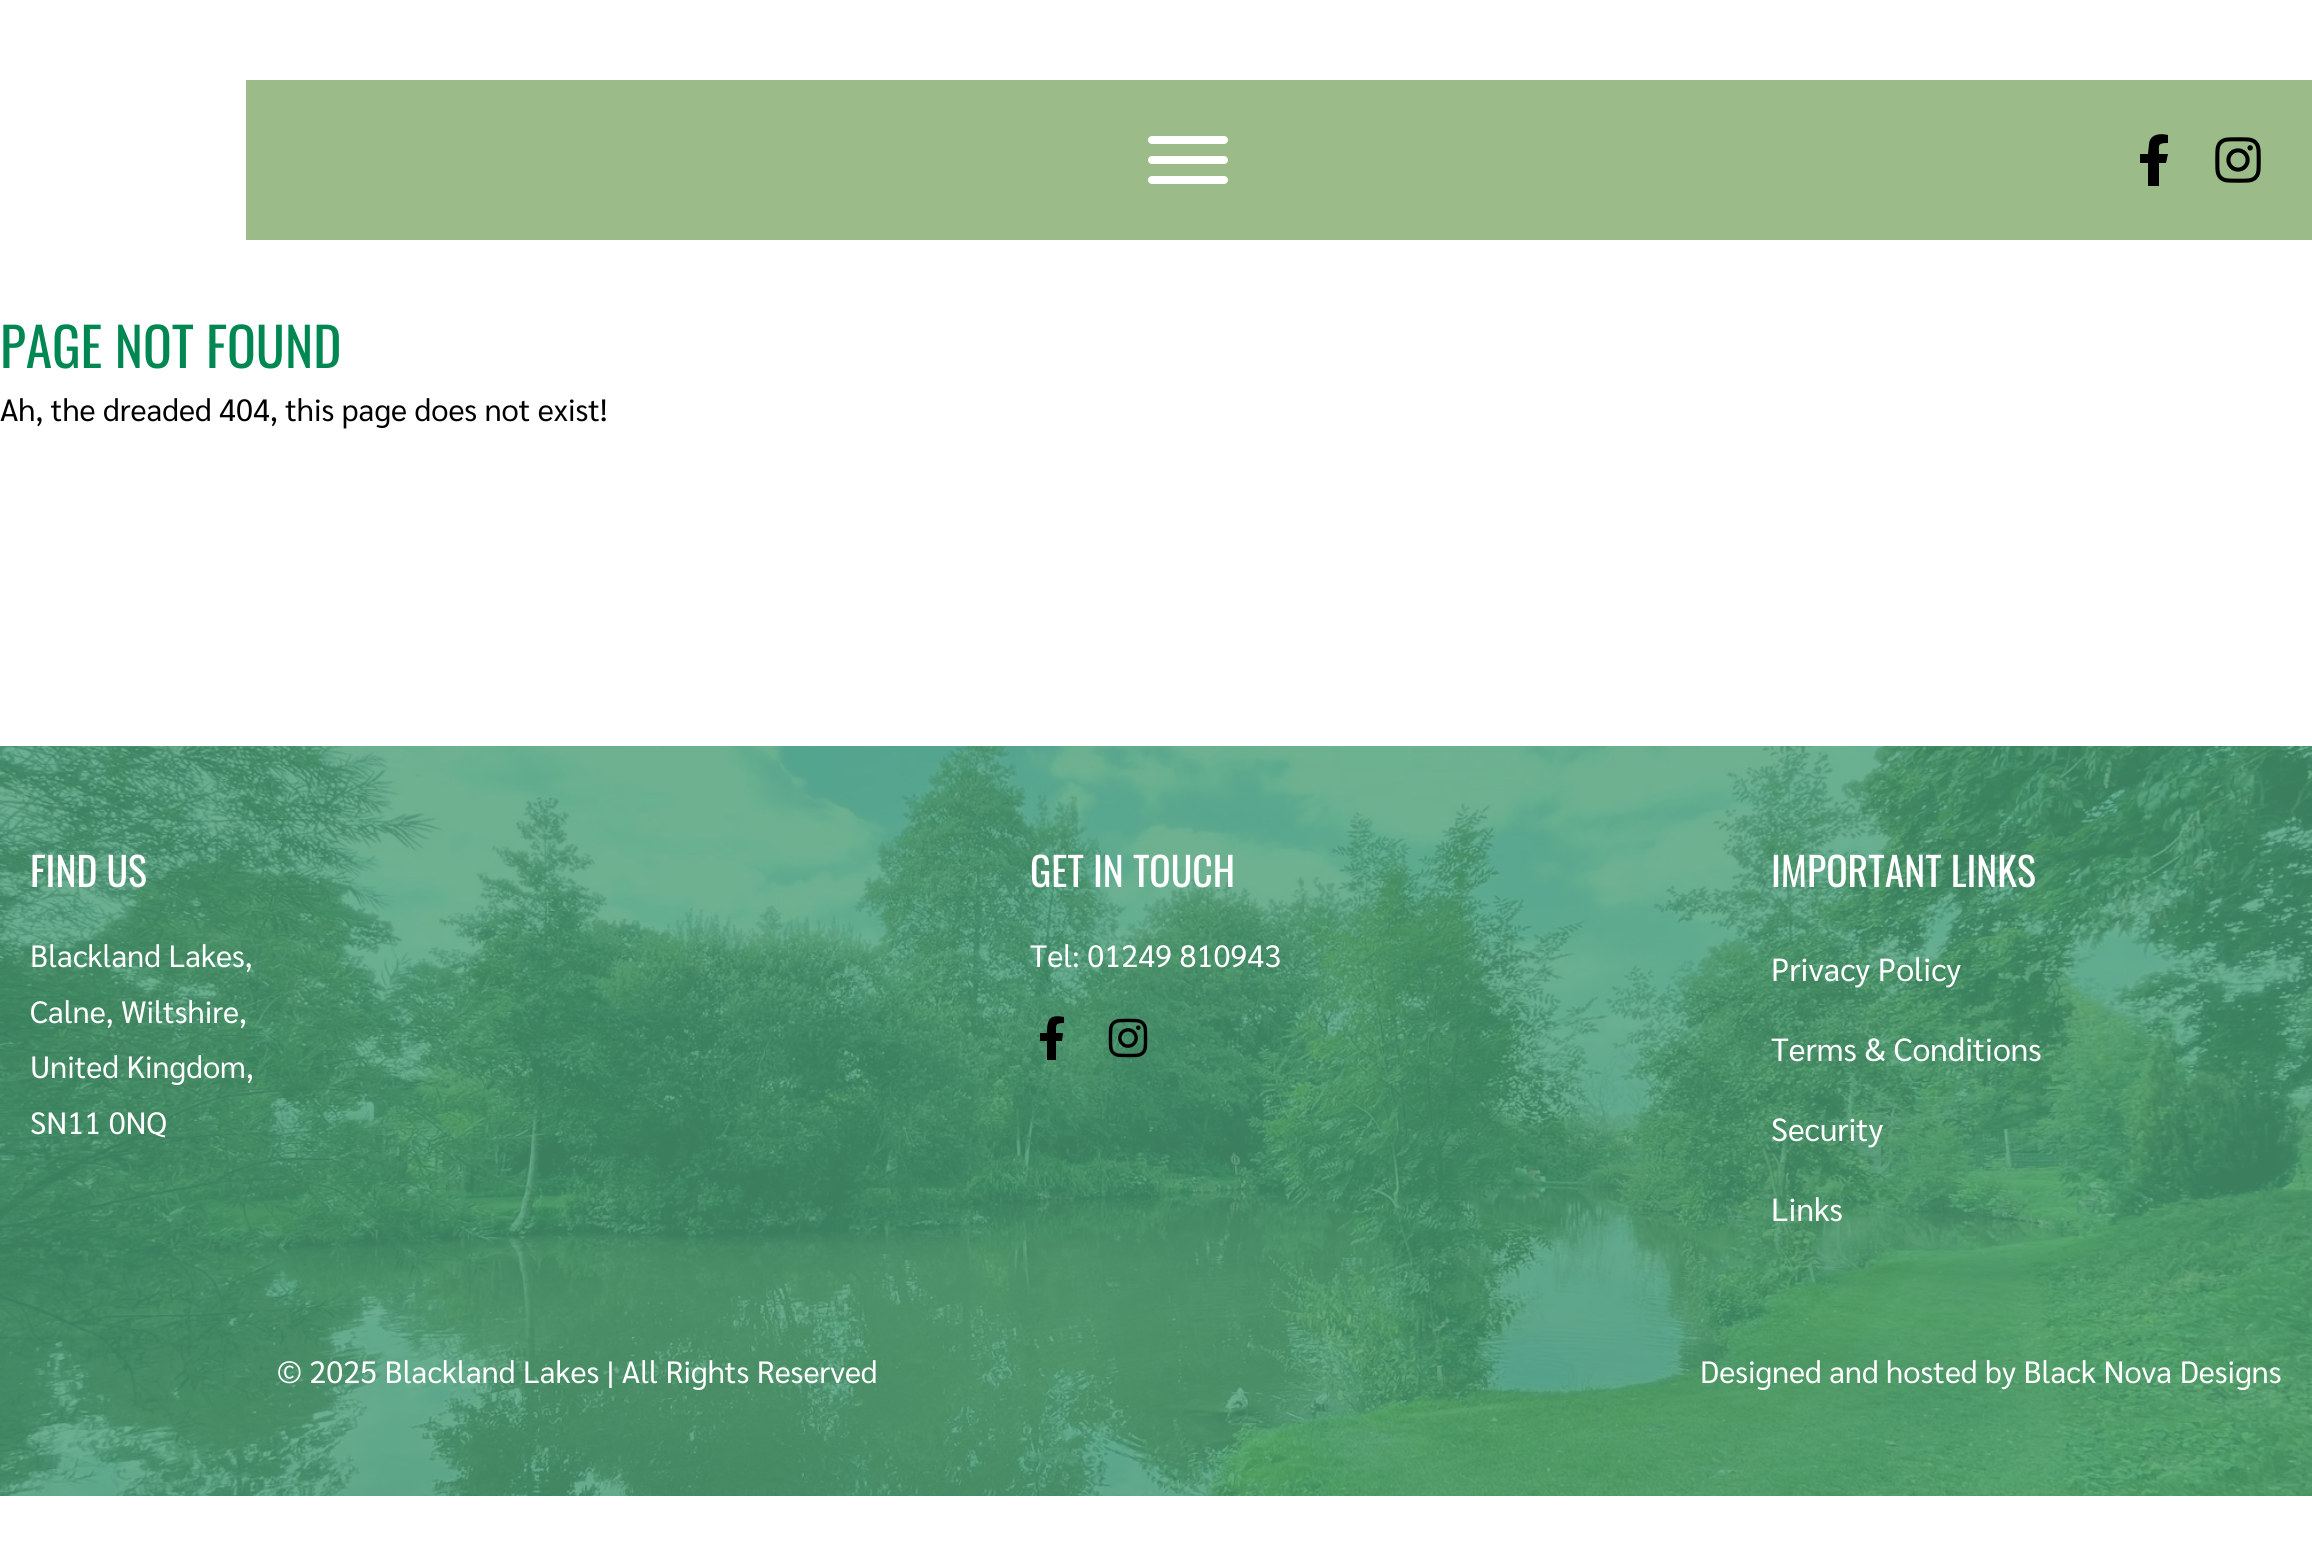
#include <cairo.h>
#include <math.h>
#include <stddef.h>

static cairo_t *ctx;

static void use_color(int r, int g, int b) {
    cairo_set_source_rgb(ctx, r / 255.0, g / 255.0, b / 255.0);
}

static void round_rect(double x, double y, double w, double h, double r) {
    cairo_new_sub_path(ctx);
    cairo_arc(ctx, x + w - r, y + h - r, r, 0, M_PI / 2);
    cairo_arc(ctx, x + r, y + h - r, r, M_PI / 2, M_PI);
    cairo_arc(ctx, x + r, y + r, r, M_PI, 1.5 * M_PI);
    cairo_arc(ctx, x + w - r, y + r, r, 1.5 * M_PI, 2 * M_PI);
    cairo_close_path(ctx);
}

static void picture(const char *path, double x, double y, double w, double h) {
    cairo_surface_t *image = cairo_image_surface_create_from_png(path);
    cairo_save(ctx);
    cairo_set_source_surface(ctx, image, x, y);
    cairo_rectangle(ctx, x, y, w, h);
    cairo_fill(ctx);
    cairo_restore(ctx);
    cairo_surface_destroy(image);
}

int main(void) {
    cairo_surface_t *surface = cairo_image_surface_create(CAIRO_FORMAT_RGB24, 2312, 1551);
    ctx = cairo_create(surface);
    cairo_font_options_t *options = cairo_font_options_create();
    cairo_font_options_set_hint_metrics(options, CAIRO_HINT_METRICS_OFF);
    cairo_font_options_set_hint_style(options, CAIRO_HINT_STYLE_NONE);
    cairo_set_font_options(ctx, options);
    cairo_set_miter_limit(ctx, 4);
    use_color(255, 255, 255);
    cairo_paint(ctx);
    use_color(155, 188, 137);
    cairo_rectangle(ctx, 246, 80, 2066, 160);
    cairo_fill(ctx);
    use_color(255, 255, 255);
    round_rect(1148, 136, 80, 8, 4);
    cairo_fill(ctx);
    round_rect(1148, 156, 80, 8, 4);
    cairo_fill(ctx);
    round_rect(1148, 176, 80, 8, 4);
    cairo_fill(ctx);
    use_color(0, 0, 0);
    cairo_new_path(ctx);
    cairo_move_to(ctx, 2166, 163);
    cairo_line_to(ctx, 2168, 154);
    cairo_line_to(ctx, 2159, 154);
    cairo_curve_to(ctx, 2159, 145, 2157, 143, 2168, 143);
    cairo_line_to(ctx, 2168, 135);
    cairo_curve_to(ctx, 2160, 133, 2150, 134, 2149, 144);
    cairo_line_to(ctx, 2148, 154);
    cairo_line_to(ctx, 2140, 154);
    cairo_line_to(ctx, 2140, 163);
    cairo_line_to(ctx, 2148, 163);
    cairo_line_to(ctx, 2148, 186);
    cairo_line_to(ctx, 2159, 186);
    cairo_line_to(ctx, 2159, 163);
    cairo_close_path(ctx);
    cairo_fill(ctx);
    picture("img1.png", 2215, 137, 46, 46);
    cairo_select_font_face(ctx, "Oswald", CAIRO_FONT_SLANT_NORMAL, CAIRO_FONT_WEIGHT_NORMAL);
    cairo_set_font_size(ctx, 53.5);
    use_color(0, 135, 82);
    cairo_move_to(ctx, 0, 368);
    cairo_show_text(ctx, "PAGE NOT FOUND");
    cairo_select_font_face(ctx, "Sarabun", CAIRO_FONT_SLANT_NORMAL, CAIRO_FONT_WEIGHT_NORMAL);
    cairo_set_font_size(ctx, 30.8);
    use_color(0, 0, 0);
    cairo_move_to(ctx, 0, 421);
    cairo_show_text(ctx, "Ah, the dreaded 404, this page does not exist!");
    picture("img2.png", 0, 746, 2312, 750);
    cairo_select_font_face(ctx, "Oswald", CAIRO_FONT_SLANT_NORMAL, CAIRO_FONT_WEIGHT_NORMAL);
    cairo_set_font_size(ctx, 39.75);
    use_color(255, 255, 255);
    cairo_move_to(ctx, 30, 887);
    cairo_show_text(ctx, "FIND US");
    cairo_select_font_face(ctx, "Sarabun", CAIRO_FONT_SLANT_NORMAL, CAIRO_FONT_WEIGHT_NORMAL);
    cairo_set_font_size(ctx, 30.8);
    cairo_move_to(ctx, 30, 967);
    cairo_show_text(ctx, "Blackland Lakes,");
    cairo_move_to(ctx, 30, 1023);
    cairo_show_text(ctx, "Calne, Wiltshire,");
    cairo_move_to(ctx, 30, 1078);
    cairo_show_text(ctx, "United Kingdom,");
    cairo_move_to(ctx, 30, 1134);
    cairo_show_text(ctx, "SN11 0NQ");
    cairo_select_font_face(ctx, "Oswald", CAIRO_FONT_SLANT_NORMAL, CAIRO_FONT_WEIGHT_NORMAL);
    cairo_set_font_size(ctx, 39.75);
    cairo_move_to(ctx, 1030, 887);
    cairo_show_text(ctx, "GET IN TOUCH");
    cairo_select_font_face(ctx, "Sarabun", CAIRO_FONT_SLANT_NORMAL, CAIRO_FONT_WEIGHT_NORMAL);
    cairo_set_font_size(ctx, 30.8);
    cairo_move_to(ctx, 1030, 967);
    cairo_show_text(ctx, "Tel: 01249 810943");
    use_color(0, 0, 0);
    cairo_new_path(ctx);
    cairo_move_to(ctx, 1062, 1041);
    cairo_line_to(ctx, 1063, 1033);
    cairo_line_to(ctx, 1056, 1033);
    cairo_curve_to(ctx, 1056, 1025, 1055, 1023, 1064, 1023);
    cairo_line_to(ctx, 1064, 1017);
    cairo_curve_to(ctx, 1049, 1014, 1047, 1020, 1047, 1033);
    cairo_line_to(ctx, 1040, 1033);
    cairo_line_to(ctx, 1040, 1041);
    cairo_line_to(ctx, 1047, 1041);
    cairo_line_to(ctx, 1047, 1060);
    cairo_line_to(ctx, 1056, 1060);
    cairo_line_to(ctx, 1056, 1041);
    cairo_close_path(ctx);
    cairo_fill(ctx);
    picture("img3.png", 1108, 1018, 40, 40);
    cairo_select_font_face(ctx, "Oswald", CAIRO_FONT_SLANT_NORMAL, CAIRO_FONT_WEIGHT_NORMAL);
    cairo_set_font_size(ctx, 39.75);
    use_color(255, 255, 255);
    cairo_move_to(ctx, 1771, 887);
    cairo_show_text(ctx, "IMPORTANT LINKS");
    cairo_select_font_face(ctx, "Sarabun", CAIRO_FONT_SLANT_NORMAL, CAIRO_FONT_WEIGHT_NORMAL);
    cairo_set_font_size(ctx, 32);
    cairo_move_to(ctx, 1771, 981);
    cairo_show_text(ctx, "Privacy Policy");
    cairo_move_to(ctx, 1771, 1061);
    cairo_show_text(ctx, "Terms & Conditions");
    cairo_move_to(ctx, 1771, 1141);
    cairo_show_text(ctx, "Security");
    cairo_move_to(ctx, 1771, 1221);
    cairo_show_text(ctx, "Links");
    cairo_set_font_size(ctx, 30.8);
    cairo_move_to(ctx, 277, 1383);
    cairo_show_text(ctx, "© 2025 Blackland Lakes | All Rights Reserved");
    cairo_move_to(ctx, 1700, 1383);
    cairo_show_text(ctx, "Designed and hosted by Black Nova Designs");
    cairo_surface_write_to_png(surface, "result.png");
    cairo_font_options_destroy(options);
    cairo_destroy(ctx);
    cairo_surface_destroy(surface);
    return 0;
}
